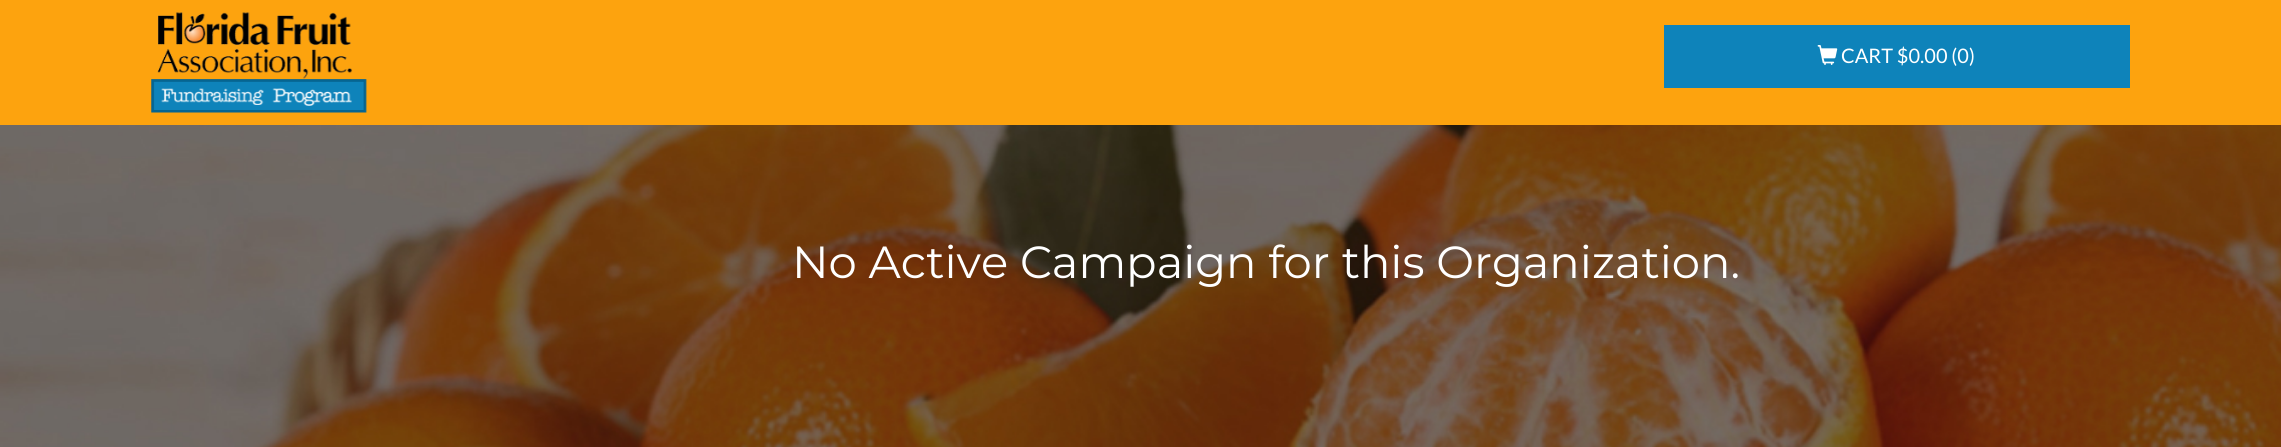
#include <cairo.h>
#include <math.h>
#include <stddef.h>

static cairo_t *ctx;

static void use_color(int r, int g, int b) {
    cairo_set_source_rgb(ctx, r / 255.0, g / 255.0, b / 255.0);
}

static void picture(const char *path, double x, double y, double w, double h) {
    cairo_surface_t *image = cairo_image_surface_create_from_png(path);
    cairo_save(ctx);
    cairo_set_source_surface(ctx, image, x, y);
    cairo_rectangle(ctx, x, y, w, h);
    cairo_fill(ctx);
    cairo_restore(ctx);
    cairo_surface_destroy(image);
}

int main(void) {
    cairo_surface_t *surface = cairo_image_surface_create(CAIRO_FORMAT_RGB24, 2281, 447);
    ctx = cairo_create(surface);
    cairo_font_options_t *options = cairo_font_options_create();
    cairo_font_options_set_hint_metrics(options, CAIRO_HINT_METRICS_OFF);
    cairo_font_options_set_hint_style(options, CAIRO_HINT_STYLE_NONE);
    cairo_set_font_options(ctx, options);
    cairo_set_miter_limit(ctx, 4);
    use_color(255, 255, 255);
    cairo_paint(ctx);
    use_color(253, 163, 14);
    cairo_rectangle(ctx, 0, 0, 2281, 125);
    cairo_fill(ctx);
    picture("img1.png", 151, 12, 216, 101);
    use_color(14, 131, 186);
    cairo_rectangle(ctx, 1664, 25, 466, 63);
    cairo_fill(ctx);
    picture("img2.png", 1817, 45, 21, 20);
    cairo_select_font_face(ctx, "Lato", CAIRO_FONT_SLANT_NORMAL, CAIRO_FONT_WEIGHT_NORMAL);
    cairo_set_font_size(ctx, 20);
    use_color(255, 255, 255);
    cairo_move_to(ctx, 1841, 63);
    cairo_show_text(ctx, "CART $0.00 (0)");
    picture("img3.png", 0, 125, 2281, 322);
    cairo_select_font_face(ctx, "Montserrat", CAIRO_FONT_SLANT_NORMAL, CAIRO_FONT_WEIGHT_NORMAL);
    cairo_set_font_size(ctx, 45);
    cairo_move_to(ctx, 792, 278);
    cairo_show_text(ctx, "No Active Campaign for this Organization.");
    cairo_surface_write_to_png(surface, "result.png");
    cairo_font_options_destroy(options);
    cairo_destroy(ctx);
    cairo_surface_destroy(surface);
    return 0;
}
